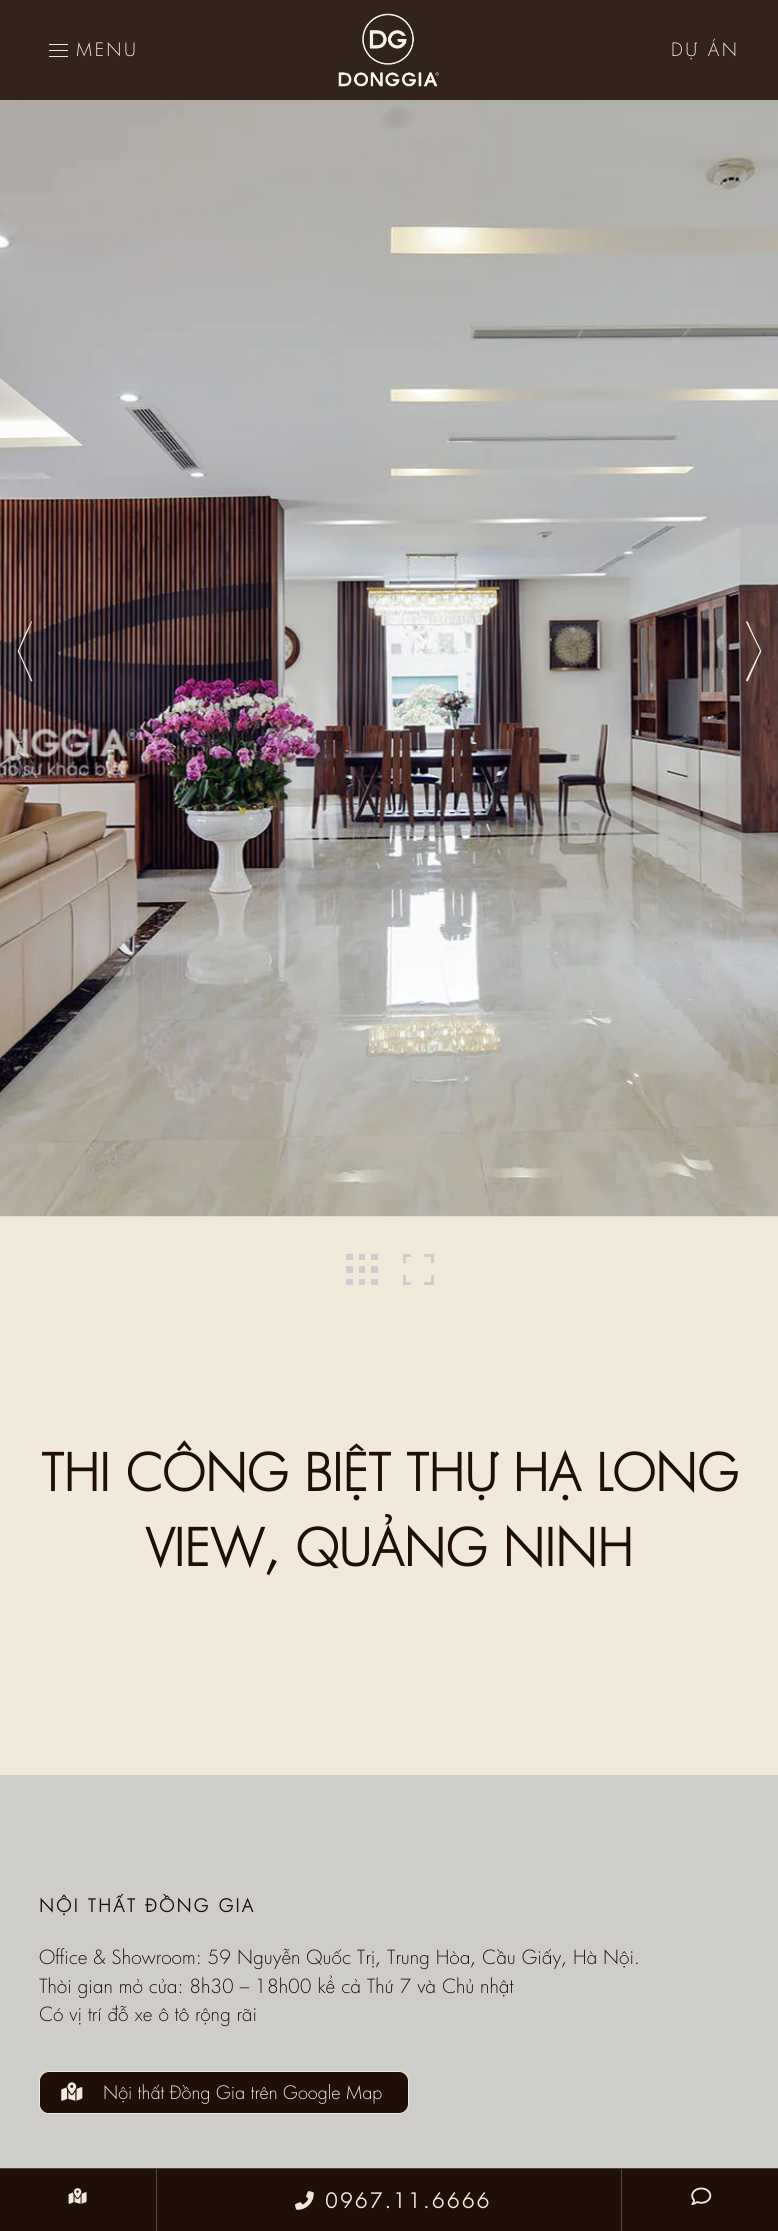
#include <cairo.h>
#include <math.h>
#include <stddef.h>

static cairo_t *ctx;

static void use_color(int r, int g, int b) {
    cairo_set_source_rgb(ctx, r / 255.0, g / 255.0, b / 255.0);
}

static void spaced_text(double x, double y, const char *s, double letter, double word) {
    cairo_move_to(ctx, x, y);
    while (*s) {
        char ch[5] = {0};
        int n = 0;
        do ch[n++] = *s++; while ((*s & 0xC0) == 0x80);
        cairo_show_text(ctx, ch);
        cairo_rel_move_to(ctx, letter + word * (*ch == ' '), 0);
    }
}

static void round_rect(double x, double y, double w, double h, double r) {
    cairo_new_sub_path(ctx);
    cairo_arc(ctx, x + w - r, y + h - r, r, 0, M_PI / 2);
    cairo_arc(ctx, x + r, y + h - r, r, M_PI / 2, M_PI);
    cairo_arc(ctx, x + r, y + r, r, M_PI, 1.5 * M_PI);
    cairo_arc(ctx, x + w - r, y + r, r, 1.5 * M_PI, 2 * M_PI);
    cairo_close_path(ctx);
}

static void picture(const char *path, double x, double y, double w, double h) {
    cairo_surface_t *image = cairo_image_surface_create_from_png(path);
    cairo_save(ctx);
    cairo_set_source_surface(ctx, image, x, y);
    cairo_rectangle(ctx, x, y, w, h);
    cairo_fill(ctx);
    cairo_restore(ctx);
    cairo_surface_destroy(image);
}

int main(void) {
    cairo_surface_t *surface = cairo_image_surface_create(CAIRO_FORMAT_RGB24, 778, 2231);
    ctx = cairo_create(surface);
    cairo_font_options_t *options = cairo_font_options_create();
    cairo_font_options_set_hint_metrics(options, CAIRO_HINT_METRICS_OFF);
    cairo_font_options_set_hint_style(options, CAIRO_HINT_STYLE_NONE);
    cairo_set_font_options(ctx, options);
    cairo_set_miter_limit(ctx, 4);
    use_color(241, 234, 218);
    cairo_paint(ctx);
    use_color(51, 36, 27);
    cairo_rectangle(ctx, 0, 0, 778, 100);
    cairo_fill(ctx);
    use_color(241, 234, 218);
    cairo_rectangle(ctx, 49, 50, 19, 1);
    cairo_fill(ctx);
    cairo_rectangle(ctx, 49, 44, 19, 1);
    cairo_fill(ctx);
    cairo_rectangle(ctx, 49, 56, 19, 1);
    cairo_fill(ctx);
    cairo_select_font_face(ctx, "Futura", CAIRO_FONT_SLANT_NORMAL, CAIRO_FONT_WEIGHT_NORMAL);
    cairo_set_font_size(ctx, 18);
    spaced_text(76, 56, "MENU", 2.5, 0);
    picture("img1.png", 338, 13, 101, 74);
    spaced_text(671, 56, "DỰ ÁN", 2.5, 0);
    picture("img2.png", 0, 100, 778, 1117);
    cairo_new_path(ctx);
    cairo_move_to(ctx, 32, 621);
    cairo_line_to(ctx, 32, 622);
    cairo_line_to(ctx, 19, 651);
    cairo_line_to(ctx, 32, 680);
    cairo_curve_to(ctx, 33, 681, 32, 682, 31, 681);
    cairo_line_to(ctx, 20, 656);
    cairo_curve_to(ctx, 17, 650, 17, 653, 20, 646);
    cairo_line_to(ctx, 24, 636);
    cairo_curve_to(ctx, 26, 632, 31, 621, 32, 621);
    cairo_close_path(ctx);
    cairo_fill(ctx);
    cairo_new_path(ctx);
    cairo_move_to(ctx, 747, 621);
    cairo_line_to(ctx, 746, 622);
    cairo_line_to(ctx, 760, 651);
    cairo_line_to(ctx, 746, 680);
    cairo_curve_to(ctx, 746, 681, 747, 682, 748, 681);
    cairo_line_to(ctx, 759, 656);
    cairo_curve_to(ctx, 762, 650, 762, 653, 759, 646);
    cairo_line_to(ctx, 754, 636);
    cairo_curve_to(ctx, 752, 632, 748, 621, 747, 621);
    cairo_close_path(ctx);
    cairo_fill(ctx);
    use_color(206, 206, 206);
    cairo_rectangle(ctx, 346, 1254, 32, 31);
    cairo_fill(ctx);
    cairo_rectangle(ctx, 356, 1247, 12, 44);
    use_color(241, 234, 218);
    cairo_set_line_width(ctx, 6);
    cairo_stroke(ctx);
    cairo_rectangle(ctx, 339, 1263, 44, 13);
    cairo_stroke(ctx);
    cairo_rectangle(ctx, 404.5, 1255.5, 28, 28);
    use_color(206, 206, 206);
    cairo_set_line_width(ctx, 3);
    cairo_stroke(ctx);
    use_color(241, 234, 218);
    cairo_rectangle(ctx, 411, 1254, 13, 31);
    cairo_fill(ctx);
    cairo_rectangle(ctx, 403, 1263, 31, 12);
    cairo_fill(ctx);
    cairo_select_font_face(ctx, "Futura", CAIRO_FONT_SLANT_NORMAL, CAIRO_FONT_WEIGHT_BOLD);
    cairo_set_font_size(ctx, 50);
    use_color(31, 15, 7);
    cairo_move_to(ctx, 41, 1491);
    cairo_show_text(ctx, "THI CÔNG BIỆT THỰ HẠ LONG");
    cairo_move_to(ctx, 146, 1566);
    cairo_show_text(ctx, "VIEW, QUẢNG NINH");
    use_color(206, 205, 201);
    cairo_rectangle(ctx, 0, 1775, 778, 393);
    cairo_fill(ctx);
    cairo_set_font_size(ctx, 17.5);
    use_color(31, 15, 7);
    spaced_text(39, 1912, "NỘI THẤT ĐỒNG GIA", 2.5, 0);
    cairo_select_font_face(ctx, "Futura", CAIRO_FONT_SLANT_NORMAL, CAIRO_FONT_WEIGHT_NORMAL);
    cairo_set_font_size(ctx, 19);
    cairo_move_to(ctx, 39, 1964);
    cairo_show_text(ctx, "Office & Showroom: 59 Nguyễn Quốc Trị, Trung Hòa, Cầu Giấy, Hà Nội.");
    cairo_move_to(ctx, 39, 1993);
    cairo_show_text(ctx, "Thời gian mở cửa: 8h30 – 18h00 kể cả Thứ 7 và Chủ nhật");
    cairo_move_to(ctx, 39, 2021);
    cairo_show_text(ctx, "Có vị trí đỗ xe ô tô rộng rãi");
    round_rect(39.5, 2071.5, 369, 42, 9.5);
    cairo_fill_preserve(ctx);
    use_color(241, 234, 218);
    cairo_set_line_width(ctx, 1);
    cairo_stroke(ctx);
    use_color(31, 15, 7);
    cairo_new_path(ctx);
    cairo_move_to(ctx, 49, 2073);
    cairo_line_to(ctx, 103, 2073);
    cairo_line_to(ctx, 103, 2113);
    cairo_line_to(ctx, 49, 2113);
    cairo_curve_to(ctx, 44, 2113, 40, 2109, 40, 2104);
    cairo_line_to(ctx, 40, 2082);
    cairo_curve_to(ctx, 40, 2077, 44, 2073, 49, 2073);
    cairo_close_path(ctx);
    cairo_fill(ctx);
    picture("img3.png", 61, 2082, 22, 19);
    cairo_set_font_size(ctx, 18);
    use_color(241, 234, 218);
    cairo_move_to(ctx, 103, 2099);
    cairo_show_text(ctx, "Nội thất Đồng Gia trên Google Map");
    use_color(31, 15, 7);
    cairo_rectangle(ctx, 0, 2169, 778, 62);
    cairo_fill(ctx);
    use_color(74, 74, 74);
    cairo_rectangle(ctx, 0, 2168, 778, 1);
    cairo_fill(ctx);
    picture("img4.png", 68, 2188, 19, 16);
    cairo_rectangle(ctx, 621, 2169, 1, 62);
    cairo_fill(ctx);
    cairo_rectangle(ctx, 156, 2169, 1, 62);
    cairo_fill(ctx);
    picture("img5.png", 295, 2191, 19, 19);
    cairo_select_font_face(ctx, "Futura", CAIRO_FONT_SLANT_NORMAL, CAIRO_FONT_WEIGHT_BOLD);
    cairo_set_font_size(ctx, 20);
    use_color(241, 234, 218);
    spaced_text(325, 2208, "0967.11.6666", 2.5, 0);
    picture("img6.png", 691, 2187, 21, 18);
    cairo_surface_write_to_png(surface, "result.png");
    cairo_font_options_destroy(options);
    cairo_destroy(ctx);
    cairo_surface_destroy(surface);
    return 0;
}
